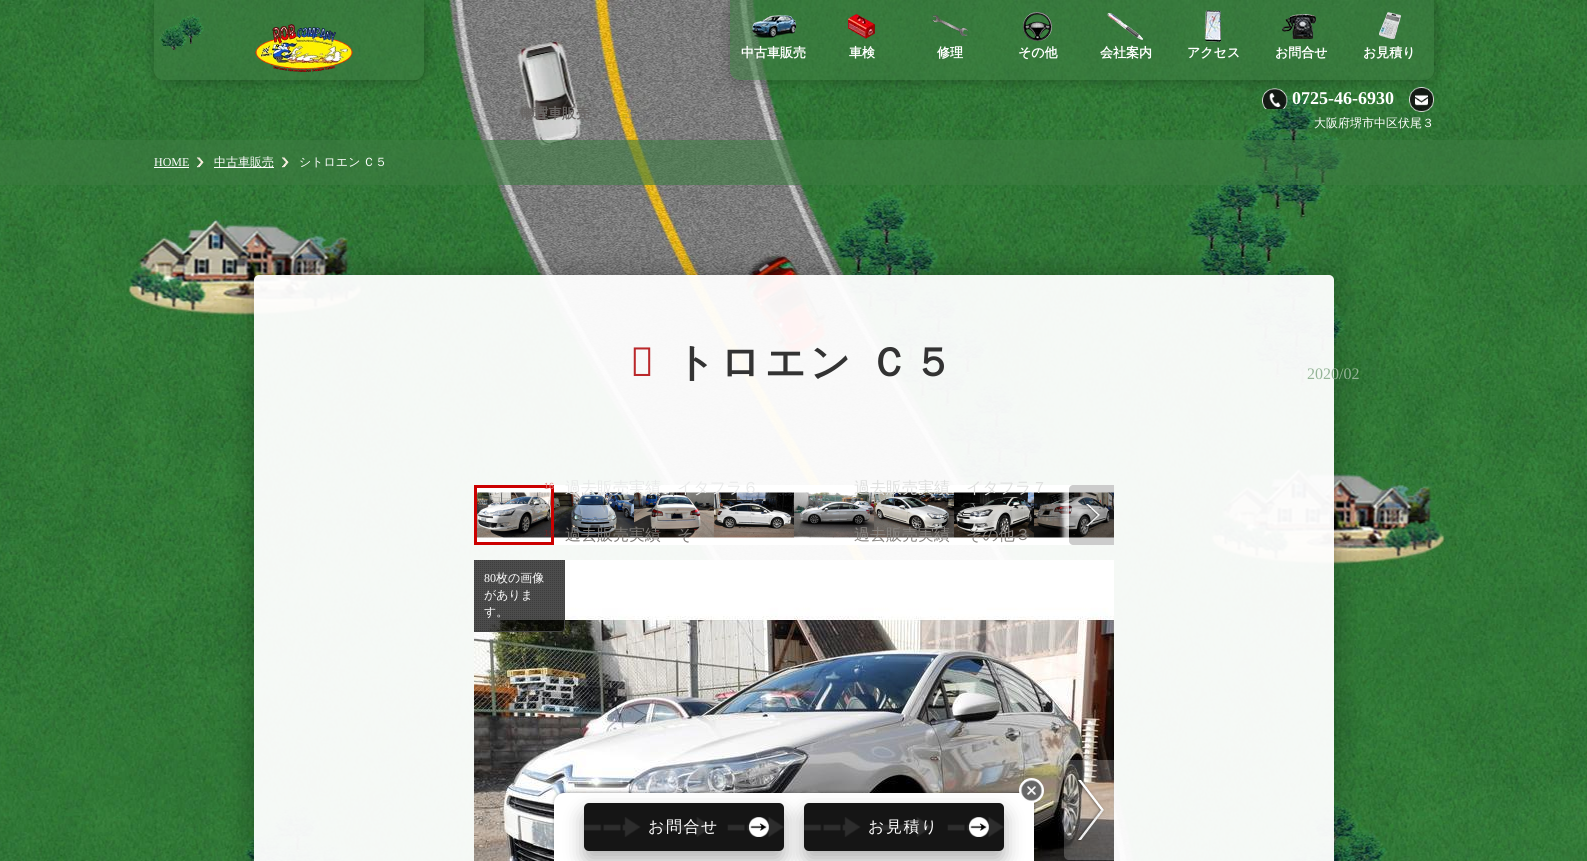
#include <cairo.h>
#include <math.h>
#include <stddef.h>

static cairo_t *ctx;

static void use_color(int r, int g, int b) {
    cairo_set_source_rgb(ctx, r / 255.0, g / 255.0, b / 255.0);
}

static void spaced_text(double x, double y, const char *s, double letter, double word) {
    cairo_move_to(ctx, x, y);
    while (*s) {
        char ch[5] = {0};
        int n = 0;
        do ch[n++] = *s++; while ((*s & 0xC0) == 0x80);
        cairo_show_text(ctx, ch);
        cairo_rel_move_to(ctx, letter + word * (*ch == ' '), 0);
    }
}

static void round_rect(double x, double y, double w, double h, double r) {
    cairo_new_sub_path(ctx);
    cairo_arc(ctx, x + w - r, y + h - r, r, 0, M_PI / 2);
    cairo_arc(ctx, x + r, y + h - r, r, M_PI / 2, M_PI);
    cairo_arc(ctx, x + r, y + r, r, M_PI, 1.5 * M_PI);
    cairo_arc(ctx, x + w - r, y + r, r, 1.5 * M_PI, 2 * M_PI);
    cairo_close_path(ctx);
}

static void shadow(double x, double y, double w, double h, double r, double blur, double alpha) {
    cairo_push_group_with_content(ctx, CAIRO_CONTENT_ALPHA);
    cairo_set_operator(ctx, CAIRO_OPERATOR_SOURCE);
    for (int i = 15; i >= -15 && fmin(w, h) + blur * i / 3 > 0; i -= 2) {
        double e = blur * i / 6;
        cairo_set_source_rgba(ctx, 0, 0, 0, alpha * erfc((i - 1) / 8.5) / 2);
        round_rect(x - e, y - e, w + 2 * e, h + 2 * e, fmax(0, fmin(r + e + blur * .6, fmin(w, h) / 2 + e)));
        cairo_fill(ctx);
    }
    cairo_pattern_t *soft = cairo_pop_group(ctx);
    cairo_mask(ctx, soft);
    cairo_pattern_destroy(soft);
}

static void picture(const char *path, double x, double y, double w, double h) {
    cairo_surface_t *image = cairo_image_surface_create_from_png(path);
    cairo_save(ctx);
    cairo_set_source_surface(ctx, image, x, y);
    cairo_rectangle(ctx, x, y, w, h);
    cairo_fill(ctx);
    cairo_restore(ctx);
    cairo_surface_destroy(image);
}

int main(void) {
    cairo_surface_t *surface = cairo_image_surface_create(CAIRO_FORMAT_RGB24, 1587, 861);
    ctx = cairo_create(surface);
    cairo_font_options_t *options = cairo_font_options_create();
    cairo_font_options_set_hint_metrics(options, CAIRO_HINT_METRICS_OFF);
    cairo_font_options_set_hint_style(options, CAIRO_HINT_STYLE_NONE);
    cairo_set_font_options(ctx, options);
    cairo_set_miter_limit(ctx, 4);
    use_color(255, 255, 255);
    cairo_paint(ctx);
    picture("img1.png", 0, 0, 1587, 861);
    picture("img12.png", 1262, 88, 26, 21);
    picture("img13.png", 1409, 87, 25, 25);
    cairo_save(ctx);
    cairo_set_fill_rule(ctx, CAIRO_FILL_RULE_EVEN_ODD);
    cairo_new_path(ctx);
    cairo_move_to(ctx, 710, 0);
    cairo_line_to(ctx, 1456, 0);
    cairo_line_to(ctx, 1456, 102);
    cairo_line_to(ctx, 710, 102);
    cairo_close_path(ctx);
    cairo_move_to(ctx, 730, 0);
    cairo_line_to(ctx, 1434, 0);
    cairo_line_to(ctx, 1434, 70);
    cairo_curve_to(ctx, 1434, 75.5, 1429.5, 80, 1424, 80);
    cairo_line_to(ctx, 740, 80);
    cairo_curve_to(ctx, 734.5, 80, 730, 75.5, 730, 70);
    cairo_close_path(ctx);
    cairo_clip(ctx);
    use_color(0, 0, 0);
    shadow(731, 1, 704, 80, 10, 6.5, 0.3);
    cairo_restore(ctx);
    cairo_set_source_rgba(ctx, 0.235, 0.486, 0.259, 0.6);
    cairo_new_path(ctx);
    cairo_move_to(ctx, 730, 0);
    cairo_line_to(ctx, 1434, 0);
    cairo_line_to(ctx, 1434, 70);
    cairo_curve_to(ctx, 1434, 75.5, 1429.5, 80, 1424, 80);
    cairo_line_to(ctx, 740, 80);
    cairo_curve_to(ctx, 734.5, 80, 730, 75.5, 730, 70);
    cairo_close_path(ctx);
    cairo_fill(ctx);
    picture("img2.png", 752, 15, 44, 23);
    cairo_select_font_face(ctx, "WenQuanYi Zen Hei", CAIRO_FONT_SLANT_NORMAL, CAIRO_FONT_WEIGHT_BOLD);
    cairo_set_font_size(ctx, 13);
    use_color(255, 255, 255);
    cairo_move_to(ctx, 741, 57);
    cairo_show_text(ctx, "中古車販売");
    picture("img3.png", 848, 14, 27, 25);
    cairo_move_to(ctx, 849, 57);
    cairo_show_text(ctx, "車検");
    picture("img4.png", 932, 15, 36, 21);
    cairo_move_to(ctx, 937, 57);
    cairo_show_text(ctx, "修理");
    picture("img5.png", 1023, 12, 29, 29);
    cairo_move_to(ctx, 1018, 57);
    cairo_show_text(ctx, "その他");
    picture("img6.png", 1107, 13, 36, 27);
    cairo_move_to(ctx, 1100, 57);
    cairo_show_text(ctx, "会社案内");
    picture("img7.png", 1204, 10, 17, 32);
    cairo_move_to(ctx, 1187, 57);
    cairo_show_text(ctx, "アクセス");
    picture("img8.png", 1282, 14, 34, 25);
    cairo_move_to(ctx, 1275, 57);
    cairo_show_text(ctx, "お問合せ");
    picture("img9.png", 1379, 12, 22, 27);
    cairo_move_to(ctx, 1363, 57);
    cairo_show_text(ctx, "お見積り");
    cairo_set_font_size(ctx, 14);
    use_color(106, 103, 101);
    cairo_move_to(ctx, 520, 118);
    cairo_show_text(ctx, "中古車販売");
    cairo_move_to(ctx, 520, 118);
    cairo_show_text(ctx, "修理");
    cairo_select_font_face(ctx, "Liberation Serif", CAIRO_FONT_SLANT_NORMAL, CAIRO_FONT_WEIGHT_BOLD);
    use_color(193, 160, 66);
    cairo_move_to(ctx, 625, 118);
    cairo_show_text(ctx, "3");
    cairo_save(ctx);
    cairo_set_fill_rule(ctx, CAIRO_FILL_RULE_EVEN_ODD);
    cairo_new_path(ctx);
    cairo_move_to(ctx, 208, 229);
    cairo_line_to(ctx, 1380, 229);
    cairo_line_to(ctx, 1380, 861);
    cairo_line_to(ctx, 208, 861);
    cairo_close_path(ctx);
    cairo_move_to(ctx, 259, 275);
    cairo_line_to(ctx, 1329, 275);
    cairo_curve_to(ctx, 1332, 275, 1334, 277, 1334, 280);
    cairo_line_to(ctx, 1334, 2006);
    cairo_curve_to(ctx, 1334, 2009, 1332, 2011, 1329, 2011);
    cairo_line_to(ctx, 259, 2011);
    cairo_curve_to(ctx, 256, 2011, 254, 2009, 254, 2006);
    cairo_line_to(ctx, 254, 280);
    cairo_curve_to(ctx, 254, 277, 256, 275, 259, 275);
    cairo_close_path(ctx);
    cairo_clip(ctx);
    use_color(0, 0, 0);
    shadow(254, 275, 1080, 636, 5, 15, 0.3);
    cairo_restore(ctx);
    cairo_set_source_rgba(ctx, 1, 1, 1, 0.95);
    round_rect(254, 275, 1080, 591, 5);
    cairo_fill(ctx);
    picture("img17.png", 477, 485, 637, 60);
    cairo_rectangle(ctx, 475.5, 486.5, 77, 57);
    use_color(204, 0, 0);
    cairo_set_line_width(ctx, 3);
    cairo_stroke(ctx);
    cairo_select_font_face(ctx, "Liberation Sans", CAIRO_FONT_SLANT_NORMAL, CAIRO_FONT_WEIGHT_NORMAL);
    cairo_set_font_size(ctx, 9);
    use_color(227, 133, 131);
    cairo_move_to(ctx, 544, 489);
    cairo_show_text(ctx, "16");
    cairo_select_font_face(ctx, "WenQuanYi Zen Hei Medium", CAIRO_FONT_SLANT_NORMAL, CAIRO_FONT_WEIGHT_NORMAL);
    cairo_set_font_size(ctx, 16);
    use_color(232, 233, 233);
    cairo_move_to(ctx, 565, 493);
    cairo_show_text(ctx, "過去販売実績　イタフラ６");
    use_color(222, 223, 222);
    cairo_move_to(ctx, 854, 493);
    cairo_show_text(ctx, "過去販売実績　イタフラ７");
    cairo_select_font_face(ctx, "Liberation Sans", CAIRO_FONT_SLANT_NORMAL, CAIRO_FONT_WEIGHT_NORMAL);
    cairo_set_font_size(ctx, 9);
    use_color(104, 35, 36);
    cairo_move_to(ctx, 544, 536);
    cairo_show_text(ctx, "19");
    cairo_select_font_face(ctx, "WenQuanYi Zen Hei Medium", CAIRO_FONT_SLANT_NORMAL, CAIRO_FONT_WEIGHT_NORMAL);
    cairo_set_font_size(ctx, 16);
    use_color(123, 120, 117);
    cairo_move_to(ctx, 565, 540);
    cairo_show_text(ctx, "過去販売実績　そ");
    use_color(134, 131, 128);
    cairo_move_to(ctx, 854, 540);
    cairo_show_text(ctx, "過去販売実績　その他３");
    cairo_select_font_face(ctx, "Liberation Serif", CAIRO_FONT_SLANT_NORMAL, CAIRO_FONT_WEIGHT_NORMAL);
    use_color(149, 181, 151);
    cairo_move_to(ctx, 1307, 379);
    cairo_show_text(ctx, "2020/02");
    cairo_save(ctx);
    cairo_set_fill_rule(ctx, CAIRO_FILL_RULE_EVEN_ODD);
    cairo_new_path(ctx);
    cairo_move_to(ctx, 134, 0);
    cairo_line_to(ctx, 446, 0);
    cairo_line_to(ctx, 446, 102);
    cairo_line_to(ctx, 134, 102);
    cairo_close_path(ctx);
    cairo_move_to(ctx, 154, 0);
    cairo_line_to(ctx, 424, 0);
    cairo_line_to(ctx, 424, 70);
    cairo_curve_to(ctx, 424, 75.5, 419.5, 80, 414, 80);
    cairo_line_to(ctx, 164, 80);
    cairo_curve_to(ctx, 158.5, 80, 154, 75.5, 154, 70);
    cairo_close_path(ctx);
    cairo_clip(ctx);
    use_color(0, 0, 0);
    shadow(155, 1, 270, 80, 10, 6.5, 0.3);
    cairo_restore(ctx);
    cairo_set_source_rgba(ctx, 0.235, 0.486, 0.259, 0.6);
    cairo_new_path(ctx);
    cairo_move_to(ctx, 154, 0);
    cairo_line_to(ctx, 424, 0);
    cairo_line_to(ctx, 424, 70);
    cairo_curve_to(ctx, 424, 75.5, 419.5, 80, 414, 80);
    cairo_line_to(ctx, 164, 80);
    cairo_curve_to(ctx, 158.5, 80, 154, 75.5, 154, 70);
    cairo_close_path(ctx);
    cairo_fill(ctx);
    picture("img10.png", 159, 14, 45, 36);
    picture("img11.png", 255, 24, 98, 48);
    cairo_select_font_face(ctx, "Liberation Serif", CAIRO_FONT_SLANT_NORMAL, CAIRO_FONT_WEIGHT_BOLD);
    cairo_set_font_size(ctx, 18);
    use_color(255, 255, 255);
    cairo_move_to(ctx, 1292, 104);
    cairo_show_text(ctx, "0725-46-6930");
    cairo_select_font_face(ctx, "WenQuanYi Zen Hei Medium", CAIRO_FONT_SLANT_NORMAL, CAIRO_FONT_WEIGHT_NORMAL);
    cairo_set_font_size(ctx, 12);
    cairo_move_to(ctx, 1314, 127);
    cairo_show_text(ctx, "大阪府堺市中区伏尾３");
    cairo_set_source_rgba(ctx, 0.235, 0.486, 0.259, 0.6);
    cairo_rectangle(ctx, 0, 140, 1587, 45);
    cairo_fill(ctx);
    picture("img14.png", 196, 157, 8, 11);
    cairo_select_font_face(ctx, "Liberation Serif", CAIRO_FONT_SLANT_NORMAL, CAIRO_FONT_WEIGHT_NORMAL);
    use_color(255, 255, 255);
    cairo_move_to(ctx, 154, 166);
    cairo_show_text(ctx, "HOME");
    cairo_rectangle(ctx, 154, 167, 35, 1);
    cairo_fill(ctx);
    picture("img15.png", 281, 157, 8, 11);
    cairo_rectangle(ctx, 214, 167, 60, 1);
    cairo_fill(ctx);
    cairo_select_font_face(ctx, "WenQuanYi Zen Hei Medium", CAIRO_FONT_SLANT_NORMAL, CAIRO_FONT_WEIGHT_NORMAL);
    cairo_move_to(ctx, 214, 166);
    cairo_show_text(ctx, "中古車販売");
    spaced_text(299, 166, "シトロエン Ｃ５", 0, -1);
    cairo_select_font_face(ctx, "Noto Sans Thin", CAIRO_FONT_SLANT_NORMAL, CAIRO_FONT_WEIGHT_NORMAL);
    cairo_set_font_size(ctx, 40);
    use_color(186, 40, 43);
    spaced_text(630, 376, "シ", 4, 0);
    cairo_select_font_face(ctx, "WenQuanYi Zen Hei", CAIRO_FONT_SLANT_NORMAL, CAIRO_FONT_WEIGHT_BOLD);
    use_color(51, 51, 51);
    spaced_text(675, 376, "トロエン Ｃ５", 4, -2);
    cairo_save(ctx);
    cairo_set_fill_rule(ctx, CAIRO_FILL_RULE_EVEN_ODD);
    cairo_new_path(ctx);
    cairo_move_to(ctx, 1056, 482);
    cairo_line_to(ctx, 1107, 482);
    cairo_line_to(ctx, 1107, 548);
    cairo_line_to(ctx, 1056, 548);
    cairo_close_path(ctx);
    cairo_move_to(ctx, 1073, 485);
    cairo_line_to(ctx, 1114, 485);
    cairo_line_to(ctx, 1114, 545);
    cairo_line_to(ctx, 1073, 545);
    cairo_curve_to(ctx, 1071, 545, 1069, 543, 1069, 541);
    cairo_line_to(ctx, 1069, 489);
    cairo_curve_to(ctx, 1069, 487, 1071, 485, 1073, 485);
    cairo_close_path(ctx);
    cairo_clip(ctx);
    use_color(255, 255, 255);
    shadow(1063, 489, 37, 52, 0, 2, 0.7);
    cairo_restore(ctx);
    cairo_set_source_rgba(ctx, 0, 0, 0, 0.2);
    cairo_new_path(ctx);
    cairo_move_to(ctx, 1073, 485);
    cairo_line_to(ctx, 1114, 485);
    cairo_line_to(ctx, 1114, 545);
    cairo_line_to(ctx, 1073, 545);
    cairo_curve_to(ctx, 1071, 545, 1069, 543, 1069, 541);
    cairo_line_to(ctx, 1069, 489);
    cairo_curve_to(ctx, 1069, 487, 1071, 485, 1073, 485);
    cairo_close_path(ctx);
    cairo_fill(ctx);
    picture("img16.png", 1085, 503, 15, 24);
    picture("img18.png", 474, 560, 640, 301);
    cairo_set_source_rgba(ctx, 0, 0, 0, 0.7);
    cairo_new_path(ctx);
    cairo_move_to(ctx, 474, 560);
    cairo_line_to(ctx, 565, 560);
    cairo_line_to(ctx, 565, 628);
    cairo_curve_to(ctx, 565, 630, 563, 632, 561, 632);
    cairo_line_to(ctx, 474, 632);
    cairo_close_path(ctx);
    cairo_fill(ctx);
    picture("img19.png", 474, 560, 91, 71);
    use_color(68, 68, 68);
    cairo_set_fill_rule(ctx, CAIRO_FILL_RULE_EVEN_ODD);
    cairo_new_path(ctx);
    cairo_move_to(ctx, 474, 560);
    cairo_line_to(ctx, 565, 560);
    cairo_line_to(ctx, 565, 628);
    cairo_curve_to(ctx, 565, 630, 563, 632, 561, 632);
    cairo_line_to(ctx, 474, 632);
    cairo_close_path(ctx);
    cairo_move_to(ctx, 474, 560);
    cairo_line_to(ctx, 564, 560);
    cairo_line_to(ctx, 564, 628);
    cairo_curve_to(ctx, 564, 630, 563, 631, 561, 631);
    cairo_line_to(ctx, 474, 631);
    cairo_close_path(ctx);
    cairo_fill(ctx);
    cairo_select_font_face(ctx, "Liberation Serif", CAIRO_FONT_SLANT_NORMAL, CAIRO_FONT_WEIGHT_NORMAL);
    cairo_set_font_size(ctx, 12);
    use_color(255, 255, 255);
    cairo_move_to(ctx, 484, 582);
    cairo_show_text(ctx, "80");
    cairo_select_font_face(ctx, "WenQuanYi Zen Hei Medium", CAIRO_FONT_SLANT_NORMAL, CAIRO_FONT_WEIGHT_NORMAL);
    cairo_move_to(ctx, 496, 582);
    cairo_show_text(ctx, "枚の画像");
    cairo_move_to(ctx, 484, 599);
    cairo_show_text(ctx, "がありま");
    cairo_move_to(ctx, 484, 616);
    cairo_show_text(ctx, "す。");
    picture("img20.png", 1056, 754, 58, 107);
    use_color(0, 0, 0);
    shadow(554, 792, 480, 68, 10, 1.5, 0.3);
    use_color(255, 255, 255);
    cairo_new_path(ctx);
    cairo_move_to(ctx, 564, 793);
    cairo_line_to(ctx, 1024, 793);
    cairo_curve_to(ctx, 1029.5, 793, 1034, 797.5, 1034, 803);
    cairo_line_to(ctx, 1034, 861);
    cairo_line_to(ctx, 554, 861);
    cairo_line_to(ctx, 554, 803);
    cairo_curve_to(ctx, 554, 797.5, 558.5, 793, 564, 793);
    cairo_close_path(ctx);
    cairo_fill(ctx);
    use_color(0, 0, 0);
    shadow(584, 813, 200, 48, 5, 10, 0.3);
    use_color(21, 21, 21);
    round_rect(584, 803, 200, 48, 5);
    cairo_fill(ctx);
    picture("img22.png", 584, 817, 200, 20);
    use_color(0, 0, 0);
    shadow(804, 813, 200, 48, 5, 10, 0.3);
    picture("img21.png", 1019, 778, 25, 25);
    cairo_set_font_size(ctx, 16);
    use_color(255, 255, 255);
    spaced_text(648, 832, "お問合せ", 1.5, 0);
    use_color(21, 21, 21);
    round_rect(804, 803, 200, 48, 5);
    cairo_fill(ctx);
    picture("img22.png", 804, 817, 200, 20);
    use_color(255, 255, 255);
    spaced_text(868, 832, "お見積り", 1.5, 0);
    cairo_surface_write_to_png(surface, "result.png");
    cairo_font_options_destroy(options);
    cairo_destroy(ctx);
    cairo_surface_destroy(surface);
    return 0;
}
